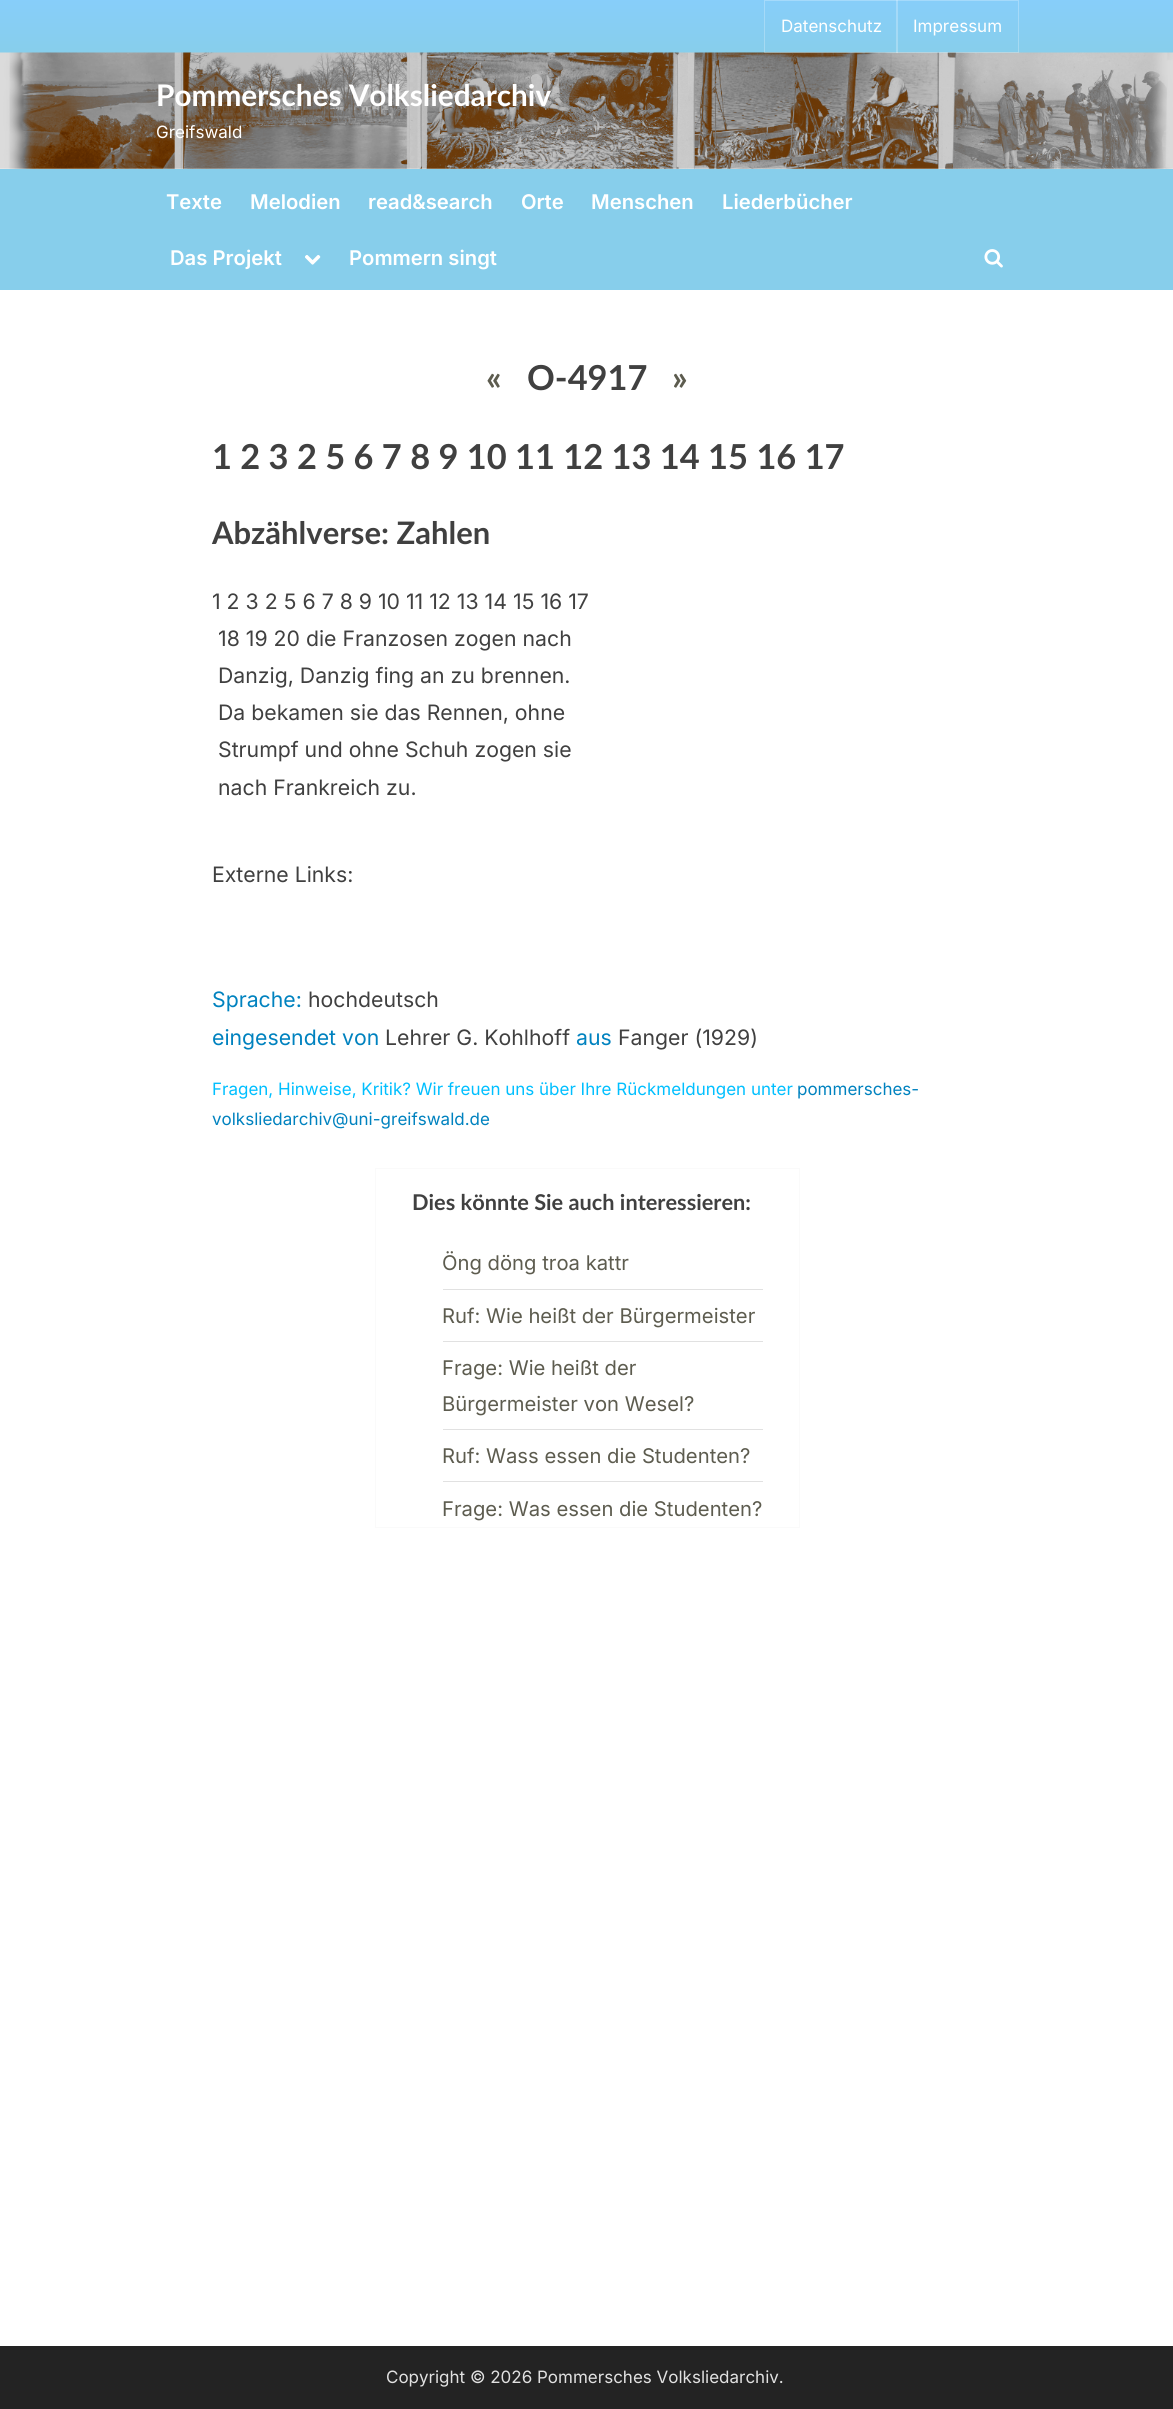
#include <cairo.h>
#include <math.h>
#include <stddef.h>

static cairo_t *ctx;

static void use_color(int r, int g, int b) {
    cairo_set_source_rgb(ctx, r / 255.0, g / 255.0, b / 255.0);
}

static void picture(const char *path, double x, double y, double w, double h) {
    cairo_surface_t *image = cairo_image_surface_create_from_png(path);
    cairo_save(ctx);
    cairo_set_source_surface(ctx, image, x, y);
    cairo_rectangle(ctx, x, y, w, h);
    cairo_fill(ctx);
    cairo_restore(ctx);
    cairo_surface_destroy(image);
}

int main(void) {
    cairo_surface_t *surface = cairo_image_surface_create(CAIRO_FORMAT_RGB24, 1173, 2409);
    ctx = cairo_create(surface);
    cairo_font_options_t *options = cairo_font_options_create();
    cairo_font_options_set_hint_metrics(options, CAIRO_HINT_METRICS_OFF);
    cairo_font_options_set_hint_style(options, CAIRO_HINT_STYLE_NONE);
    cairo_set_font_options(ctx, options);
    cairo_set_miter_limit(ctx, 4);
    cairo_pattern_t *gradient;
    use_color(255, 255, 255);
    cairo_paint(ctx);
    gradient = cairo_pattern_create_linear(587, 53, 587, 0);
    cairo_pattern_add_color_stop_rgba(gradient, 0, 0.529, 0.808, 0.922, 1);
    cairo_pattern_add_color_stop_rgba(gradient, 1, 0.529, 0.808, 0.98, 1);
    cairo_set_source(ctx, gradient);
    cairo_pattern_destroy(gradient);
    cairo_rectangle(ctx, 0, 0, 1173, 53);
    cairo_fill(ctx);
    picture("img1.png", 0, 52, 1173, 117);
    cairo_rectangle(ctx, 764.5, 0.5, 133, 52);
    cairo_set_source_rgba(ctx, 1, 1, 1, 0.25);
    cairo_set_line_width(ctx, 1);
    cairo_stroke(ctx);
    cairo_select_font_face(ctx, "Inter", CAIRO_FONT_SLANT_NORMAL, CAIRO_FONT_WEIGHT_NORMAL);
    cairo_set_font_size(ctx, 17);
    use_color(255, 255, 255);
    cairo_move_to(ctx, 781, 32);
    cairo_show_text(ctx, "Datenschutz");
    cairo_rectangle(ctx, 896.5, 0.5, 122, 52);
    cairo_set_source_rgba(ctx, 1, 1, 1, 0.25);
    cairo_stroke(ctx);
    use_color(255, 255, 255);
    cairo_move_to(ctx, 913, 32);
    cairo_show_text(ctx, "Impressum");
    cairo_select_font_face(ctx, "Lato", CAIRO_FONT_SLANT_NORMAL, CAIRO_FONT_WEIGHT_BOLD);
    cairo_set_font_size(ctx, 29.75);
    cairo_move_to(ctx, 156, 106);
    cairo_show_text(ctx, "Pommersches Volksliedarchiv");
    cairo_select_font_face(ctx, "Inter", CAIRO_FONT_SLANT_NORMAL, CAIRO_FONT_WEIGHT_NORMAL);
    cairo_set_font_size(ctx, 17);
    cairo_move_to(ctx, 156, 138);
    cairo_show_text(ctx, "Greifswald");
    use_color(135, 206, 235);
    cairo_rectangle(ctx, 0, 169, 1173, 121);
    cairo_fill(ctx);
    cairo_select_font_face(ctx, "Inter SemiBold", CAIRO_FONT_SLANT_NORMAL, CAIRO_FONT_WEIGHT_NORMAL);
    cairo_set_font_size(ctx, 20.25);
    use_color(255, 255, 255);
    cairo_move_to(ctx, 166, 209);
    cairo_show_text(ctx, "Texte");
    cairo_move_to(ctx, 250, 209);
    cairo_show_text(ctx, "Melodien");
    cairo_move_to(ctx, 368, 209);
    cairo_show_text(ctx, "read&search");
    cairo_move_to(ctx, 521, 209);
    cairo_show_text(ctx, "Orte");
    cairo_move_to(ctx, 591, 209);
    cairo_show_text(ctx, "Menschen");
    cairo_move_to(ctx, 722, 209);
    cairo_show_text(ctx, "Liederbücher");
    cairo_move_to(ctx, 170, 265);
    cairo_show_text(ctx, "Das Projekt");
    picture("img2.png", 305, 255, 16, 10);
    cairo_move_to(ctx, 349, 265);
    cairo_show_text(ctx, "Pommern singt");
    picture("img3.png", 984, 249, 19, 19);
    cairo_select_font_face(ctx, "Lato", CAIRO_FONT_SLANT_NORMAL, CAIRO_FONT_WEIGHT_BOLD);
    cairo_set_font_size(ctx, 34.4);
    use_color(93, 92, 79);
    cairo_move_to(ctx, 486, 390);
    cairo_show_text(ctx, "«");
    use_color(64, 64, 64);
    cairo_move_to(ctx, 527, 390);
    cairo_show_text(ctx, "O-4917");
    use_color(93, 92, 79);
    cairo_move_to(ctx, 672, 390);
    cairo_show_text(ctx, "»");
    use_color(64, 64, 64);
    cairo_move_to(ctx, 212, 469);
    cairo_show_text(ctx, "1 2 3 2 5 6 7 8 9 10 11 12 13 14 15 16 17");
    cairo_set_font_size(ctx, 31);
    cairo_move_to(ctx, 212, 544);
    cairo_show_text(ctx, "Abzählverse: Zahlen");
    cairo_select_font_face(ctx, "Inter", CAIRO_FONT_SLANT_NORMAL, CAIRO_FONT_WEIGHT_NORMAL);
    cairo_set_font_size(ctx, 21.25);
    cairo_move_to(ctx, 212, 609);
    cairo_show_text(ctx, "1 2 3 2 5 6 7 8 9 10 11 12 13 14 15 16 17");
    cairo_move_to(ctx, 218, 646);
    cairo_show_text(ctx, "18 19 20 die Franzosen zogen nach");
    cairo_move_to(ctx, 218, 683);
    cairo_show_text(ctx, "Danzig, Danzig fing an zu brennen.");
    cairo_move_to(ctx, 218, 720);
    cairo_show_text(ctx, "Da bekamen sie das Rennen, ohne");
    cairo_move_to(ctx, 218, 757);
    cairo_show_text(ctx, "Strumpf und ohne Schuh zogen sie");
    cairo_move_to(ctx, 218, 795);
    cairo_show_text(ctx, "nach Frankreich zu.");
    cairo_move_to(ctx, 212, 882);
    cairo_show_text(ctx, "Externe Links:");
    use_color(0, 130, 191);
    cairo_move_to(ctx, 212, 1007);
    cairo_show_text(ctx, "Sprache:");
    use_color(64, 64, 64);
    cairo_move_to(ctx, 308, 1007);
    cairo_show_text(ctx, "hochdeutsch");
    use_color(0, 130, 191);
    cairo_move_to(ctx, 212, 1045);
    cairo_show_text(ctx, "eingesendet von");
    use_color(64, 64, 64);
    cairo_move_to(ctx, 385, 1045);
    cairo_show_text(ctx, "Lehrer G. Kohlhoff");
    use_color(0, 130, 191);
    cairo_move_to(ctx, 576, 1045);
    cairo_show_text(ctx, "aus");
    use_color(64, 64, 64);
    cairo_move_to(ctx, 618, 1045);
    cairo_show_text(ctx, "Fanger (1929)");
    cairo_set_font_size(ctx, 17);
    use_color(0, 191, 255);
    cairo_move_to(ctx, 212, 1095);
    cairo_show_text(ctx, "Fragen, Hinweise, Kritik? Wir freuen uns über Ihre Rückmeldungen unter");
    use_color(0, 130, 191);
    cairo_move_to(ctx, 797, 1095);
    cairo_show_text(ctx, "pommersches-");
    cairo_move_to(ctx, 212, 1125);
    cairo_show_text(ctx, "volksliedarchiv@uni-greifswald.de");
    cairo_rectangle(ctx, 375.5, 1168.5, 424, 359);
    use_color(250, 250, 250);
    cairo_stroke(ctx);
    cairo_select_font_face(ctx, "Lato", CAIRO_FONT_SLANT_NORMAL, CAIRO_FONT_WEIGHT_BOLD);
    cairo_set_font_size(ctx, 21.75);
    use_color(64, 64, 64);
    cairo_move_to(ctx, 412, 1210);
    cairo_show_text(ctx, "Dies könnte Sie auch interessieren:");
    use_color(225, 225, 225);
    cairo_rectangle(ctx, 443, 1289, 320, 1);
    cairo_fill(ctx);
    cairo_select_font_face(ctx, "Inter", CAIRO_FONT_SLANT_NORMAL, CAIRO_FONT_WEIGHT_NORMAL);
    cairo_set_font_size(ctx, 20.25);
    use_color(93, 92, 79);
    cairo_move_to(ctx, 442, 1270);
    cairo_show_text(ctx, "Öng döng troa kattr");
    use_color(225, 225, 225);
    cairo_rectangle(ctx, 443, 1341, 320, 1);
    cairo_fill(ctx);
    use_color(93, 92, 79);
    cairo_move_to(ctx, 442, 1323);
    cairo_show_text(ctx, "Ruf: Wie heißt der Bürgermeister");
    use_color(225, 225, 225);
    cairo_rectangle(ctx, 443, 1429, 320, 1);
    cairo_fill(ctx);
    use_color(93, 92, 79);
    cairo_move_to(ctx, 442, 1375);
    cairo_show_text(ctx, "Frage: Wie heißt der");
    cairo_move_to(ctx, 442, 1411);
    cairo_show_text(ctx, "Bürgermeister von Wesel?");
    use_color(225, 225, 225);
    cairo_rectangle(ctx, 443, 1481, 320, 1);
    cairo_fill(ctx);
    use_color(93, 92, 79);
    cairo_move_to(ctx, 442, 1463);
    cairo_show_text(ctx, "Ruf: Wass essen die Studenten?");
    cairo_move_to(ctx, 442, 1516);
    cairo_show_text(ctx, "Frage: Was essen die Studenten?");
    use_color(35, 35, 35);
    cairo_rectangle(ctx, 0, 2346, 1173, 63);
    cairo_fill(ctx);
    cairo_set_font_size(ctx, 17);
    use_color(225, 225, 225);
    cairo_move_to(ctx, 386, 2383);
    cairo_show_text(ctx, "Copyright © 2026 Pommersches Volksliedarchiv.");
    cairo_surface_write_to_png(surface, "result.png");
    cairo_font_options_destroy(options);
    cairo_destroy(ctx);
    cairo_surface_destroy(surface);
    return 0;
}
